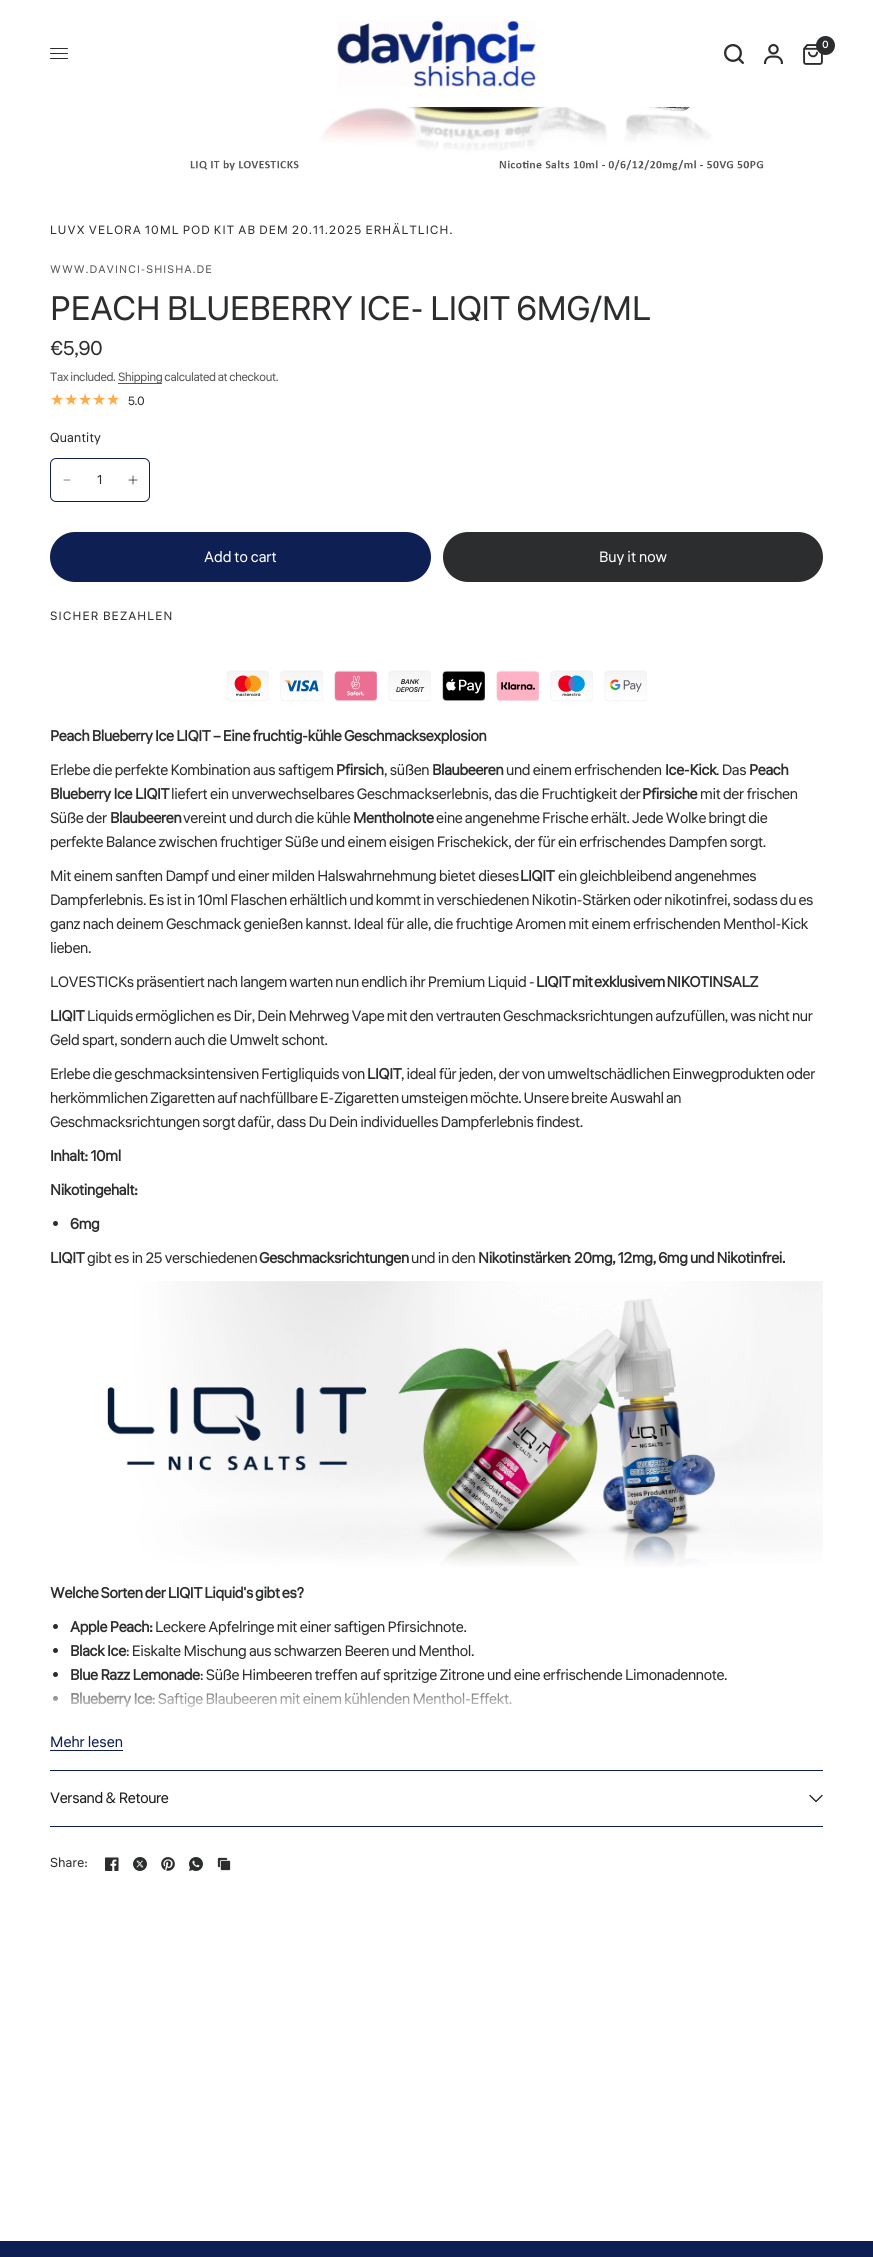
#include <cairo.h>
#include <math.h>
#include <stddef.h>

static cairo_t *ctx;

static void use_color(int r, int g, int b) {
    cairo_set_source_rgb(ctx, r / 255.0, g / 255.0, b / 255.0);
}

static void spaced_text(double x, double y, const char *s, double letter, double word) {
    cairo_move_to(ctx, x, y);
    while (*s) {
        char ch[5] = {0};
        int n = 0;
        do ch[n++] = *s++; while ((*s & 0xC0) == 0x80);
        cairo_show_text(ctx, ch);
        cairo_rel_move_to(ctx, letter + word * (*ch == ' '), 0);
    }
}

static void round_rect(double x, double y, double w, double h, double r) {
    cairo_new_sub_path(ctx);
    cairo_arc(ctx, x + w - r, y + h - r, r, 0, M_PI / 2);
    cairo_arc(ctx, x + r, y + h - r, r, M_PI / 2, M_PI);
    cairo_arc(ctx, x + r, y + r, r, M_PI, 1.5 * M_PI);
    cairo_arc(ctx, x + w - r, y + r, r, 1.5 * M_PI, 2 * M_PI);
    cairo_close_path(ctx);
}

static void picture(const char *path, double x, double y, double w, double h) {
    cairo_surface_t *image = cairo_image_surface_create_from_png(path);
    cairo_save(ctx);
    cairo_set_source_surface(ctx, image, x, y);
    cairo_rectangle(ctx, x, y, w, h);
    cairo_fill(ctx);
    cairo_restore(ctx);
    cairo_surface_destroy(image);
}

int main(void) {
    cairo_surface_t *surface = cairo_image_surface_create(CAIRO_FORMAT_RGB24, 873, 2257);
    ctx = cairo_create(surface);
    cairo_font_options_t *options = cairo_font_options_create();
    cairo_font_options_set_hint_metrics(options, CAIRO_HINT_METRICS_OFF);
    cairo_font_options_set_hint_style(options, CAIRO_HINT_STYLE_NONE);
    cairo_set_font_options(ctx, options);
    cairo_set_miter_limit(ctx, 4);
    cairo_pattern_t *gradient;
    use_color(255, 255, 255);
    cairo_paint(ctx);
    picture("img1.png", 337, 20, 199, 67);
    picture("img2.png", 724, 44, 20, 20);
    picture("img3.png", 764, 44, 19, 20);
    picture("img4.png", 803, 44, 20, 21);
    use_color(44, 45, 46);
    cairo_arc(ctx, 825.5, 45.5, 9.5, 0, 2 * M_PI);
    cairo_fill(ctx);
    cairo_select_font_face(ctx, "Liter", CAIRO_FONT_SLANT_NORMAL, CAIRO_FONT_WEIGHT_BOLD);
    cairo_set_font_size(ctx, 10);
    use_color(255, 255, 255);
    spaced_text(822, 48, "0", -0.34, 0);
    use_color(44, 45, 46);
    round_rect(50, 48, 18, 1, 0.5);
    cairo_fill(ctx);
    round_rect(50, 53, 18, 1, 0.5);
    cairo_fill(ctx);
    round_rect(50, 58, 18, 1, 0.5);
    cairo_fill(ctx);
    picture("img5.png", 190, 107, 574, 64);
    cairo_select_font_face(ctx, "Liter", CAIRO_FONT_SLANT_NORMAL, CAIRO_FONT_WEIGHT_NORMAL);
    cairo_set_font_size(ctx, 12);
    spaced_text(50, 234, "LUVX VELORA 10ML POD KIT AB DEM 20.11.2025 ERHÄLTLICH.", 1.2, -0.5);
    cairo_set_font_size(ctx, 11);
    use_color(86, 87, 88);
    spaced_text(50, 273, "WWW.DAVINCI-SHISHA.DE", 1.1, 0);
    cairo_set_font_size(ctx, 34);
    use_color(44, 45, 46);
    spaced_text(50, 320, "PEACH BLUEBERRY ICE- LIQIT 6MG/ML", -0.34, 0);
    cairo_set_font_size(ctx, 20);
    spaced_text(50, 355, "€5,90", -0.34, 0);
    cairo_set_font_size(ctx, 12);
    use_color(86, 87, 88);
    spaced_text(50, 381, "Tax included.", -0.34, 0);
    cairo_rectangle(ctx, 118, 383, 44, 1);
    cairo_fill(ctx);
    spaced_text(118, 381, "Shipping calculated at checkout.", -0.34, 0);
    cairo_select_font_face(ctx, "DejaVu Sans", CAIRO_FONT_SLANT_NORMAL, CAIRO_FONT_WEIGHT_NORMAL);
    cairo_set_font_size(ctx, 16);
    gradient = cairo_pattern_create_linear(50, 400, 120, 400);
    cairo_pattern_add_color_stop_rgba(gradient, 1, 1, 0.667, 0.278, 1);
    cairo_pattern_add_color_stop_rgba(gradient, 1, 0.882, 0.882, 0.882, 1);
    cairo_set_source(ctx, gradient);
    cairo_pattern_destroy(gradient);
    spaced_text(50, 405, "★★★★★", -0.34, 0);
    cairo_select_font_face(ctx, "Liter", CAIRO_FONT_SLANT_NORMAL, CAIRO_FONT_WEIGHT_NORMAL);
    cairo_set_font_size(ctx, 12);
    use_color(44, 45, 46);
    spaced_text(128, 405, "5.0", -0.34, 0);
    cairo_set_font_size(ctx, 13);
    spaced_text(50, 442, "Quantity", 0.25, 0);
    round_rect(50.5, 458.5, 99, 43, 5.5);
    use_color(14, 31, 83);
    cairo_set_line_width(ctx, 1);
    cairo_stroke(ctx);
    cairo_new_path(ctx);
    cairo_move_to(ctx, 64, 480);
    cairo_line_to(ctx, 70, 480);
    use_color(128, 129, 130);
    cairo_set_line_cap(ctx, CAIRO_LINE_CAP_ROUND);
    cairo_set_line_join(ctx, CAIRO_LINE_JOIN_ROUND);
    cairo_stroke(ctx);
    use_color(44, 45, 46);
    cairo_move_to(ctx, 97, 484);
    cairo_show_text(ctx, "1");
    picture("img6.png", 128, 475, 10, 10);
    use_color(14, 31, 83);
    round_rect(50, 532, 381, 50, 25);
    cairo_fill(ctx);
    cairo_set_font_size(ctx, 15);
    use_color(255, 255, 255);
    cairo_move_to(ctx, 204, 562);
    cairo_show_text(ctx, "Add to cart");
    use_color(44, 45, 46);
    round_rect(443, 532, 380, 50, 25);
    cairo_fill(ctx);
    use_color(255, 255, 255);
    cairo_move_to(ctx, 599, 562);
    cairo_show_text(ctx, "Buy it now");
    cairo_set_font_size(ctx, 12);
    use_color(44, 45, 46);
    spaced_text(50, 620, "SICHER BEZAHLEN", 1.2, 0);
    picture("img7.png", 226, 670, 421, 32);
    cairo_select_font_face(ctx, "Liter", CAIRO_FONT_SLANT_NORMAL, CAIRO_FONT_WEIGHT_BOLD);
    cairo_set_font_size(ctx, 15);
    spaced_text(50, 741, "Peach Blueberry Ice LIQIT – Eine fruchtig-kühle Geschmacksexplosion", -0.34, -0.25);
    cairo_select_font_face(ctx, "Liter", CAIRO_FONT_SLANT_NORMAL, CAIRO_FONT_WEIGHT_NORMAL);
    spaced_text(50, 775, "Erlebe die perfekte Kombination aus saftigem", -0.34, 0);
    cairo_select_font_face(ctx, "Liter", CAIRO_FONT_SLANT_NORMAL, CAIRO_FONT_WEIGHT_BOLD);
    spaced_text(336, 775, "Pfirsich", -0.34, 0);
    cairo_select_font_face(ctx, "Liter", CAIRO_FONT_SLANT_NORMAL, CAIRO_FONT_WEIGHT_NORMAL);
    spaced_text(384, 775, ", süßen", -0.34, 0);
    cairo_select_font_face(ctx, "Liter", CAIRO_FONT_SLANT_NORMAL, CAIRO_FONT_WEIGHT_BOLD);
    spaced_text(432, 775, "Blaubeeren", -0.34, 0);
    cairo_select_font_face(ctx, "Liter", CAIRO_FONT_SLANT_NORMAL, CAIRO_FONT_WEIGHT_NORMAL);
    spaced_text(506, 775, "und einem erfrischenden", -0.34, 0);
    cairo_select_font_face(ctx, "Liter", CAIRO_FONT_SLANT_NORMAL, CAIRO_FONT_WEIGHT_BOLD);
    spaced_text(665, 775, "Ice-Kick", -0.34, 0);
    cairo_select_font_face(ctx, "Liter", CAIRO_FONT_SLANT_NORMAL, CAIRO_FONT_WEIGHT_NORMAL);
    spaced_text(716, 775, ". Das", -0.34, 0);
    cairo_select_font_face(ctx, "Liter", CAIRO_FONT_SLANT_NORMAL, CAIRO_FONT_WEIGHT_BOLD);
    spaced_text(749, 775, "Peach", -0.34, 0);
    spaced_text(50, 799, "Blueberry Ice LIQIT", -0.34, 0);
    cairo_select_font_face(ctx, "Liter", CAIRO_FONT_SLANT_NORMAL, CAIRO_FONT_WEIGHT_NORMAL);
    spaced_text(171, 799, "liefert ein unverwechselbares Geschmackserlebnis, das die Fruchtigkeit der", -0.34, 0);
    cairo_select_font_face(ctx, "Liter", CAIRO_FONT_SLANT_NORMAL, CAIRO_FONT_WEIGHT_BOLD);
    spaced_text(642, 799, "Pfirsiche", -0.34, 0);
    cairo_select_font_face(ctx, "Liter", CAIRO_FONT_SLANT_NORMAL, CAIRO_FONT_WEIGHT_NORMAL);
    spaced_text(700, 799, "mit der frischen", -0.34, 0);
    spaced_text(50, 823, "Süße der", -0.34, 0);
    cairo_select_font_face(ctx, "Liter", CAIRO_FONT_SLANT_NORMAL, CAIRO_FONT_WEIGHT_BOLD);
    spaced_text(110, 823, "Blaubeeren", -0.34, 0);
    cairo_select_font_face(ctx, "Liter", CAIRO_FONT_SLANT_NORMAL, CAIRO_FONT_WEIGHT_NORMAL);
    spaced_text(183, 823, "vereint und durch die kühle", -0.34, 0);
    cairo_select_font_face(ctx, "Liter", CAIRO_FONT_SLANT_NORMAL, CAIRO_FONT_WEIGHT_BOLD);
    spaced_text(353, 823, "Mentholnote", -0.34, 0);
    cairo_select_font_face(ctx, "Liter", CAIRO_FONT_SLANT_NORMAL, CAIRO_FONT_WEIGHT_NORMAL);
    spaced_text(436, 823, "eine angenehme Frische erhält. Jede Wolke bringt die", -0.34, -0.25);
    spaced_text(50, 847, "perfekte Balance zwischen fruchtiger Süße und einem eisigen Frischekick, der für ein erfrischendes Dampfen sorgt.", -0.34, 0);
    spaced_text(50, 881, "Mit einem sanften Dampf und einer milden Halswahrnehmung bietet dieses", -0.34, 0);
    cairo_select_font_face(ctx, "Liter", CAIRO_FONT_SLANT_NORMAL, CAIRO_FONT_WEIGHT_BOLD);
    spaced_text(520, 881, "LIQIT", -0.34, 0);
    cairo_select_font_face(ctx, "Liter", CAIRO_FONT_SLANT_NORMAL, CAIRO_FONT_WEIGHT_NORMAL);
    spaced_text(558, 881, "ein gleichbleibend angenehmes", -0.34, 0);
    spaced_text(50, 905, "Dampferlebnis. Es ist in 10ml Flaschen erhältlich und kommt in verschiedenen Nikotin-Stärken oder nikotinfrei, sodass du es", -0.34, -0.25);
    spaced_text(50, 929, "ganz nach deinem Geschmack genießen kannst. Ideal für alle, die fruchtige Aromen mit einem erfrischenden Menthol-Kick", -0.34, 0);
    spaced_text(50, 953, "lieben.", -0.34, 0);
    spaced_text(50, 987, "LOVESTICKs präsentiert nach langem warten nun endlich ihr Premium Liquid -", -0.34, -0.25);
    cairo_select_font_face(ctx, "Liter", CAIRO_FONT_SLANT_NORMAL, CAIRO_FONT_WEIGHT_BOLD);
    spaced_text(536, 987, "LIQIT mit exklusivem NIKOTINSALZ", -0.34, -1);
    spaced_text(50, 1021, "LIQIT", -0.34, 0);
    cairo_select_font_face(ctx, "Liter", CAIRO_FONT_SLANT_NORMAL, CAIRO_FONT_WEIGHT_NORMAL);
    spaced_text(87, 1021, "Liquids ermöglichen es Dir, Dein Mehrweg Vape mit den vertrauten Geschmacksrichtungen aufzufüllen, was nicht nur", -0.34, -0.25);
    spaced_text(50, 1045, "Geld spart, sondern auch die Umwelt schont.", -0.34, 0);
    spaced_text(50, 1079, "Erlebe die geschmacksintensiven Fertigliquids von", -0.34, -0.25);
    cairo_select_font_face(ctx, "Liter", CAIRO_FONT_SLANT_NORMAL, CAIRO_FONT_WEIGHT_BOLD);
    spaced_text(367, 1079, "LIQIT", -0.34, 0);
    cairo_select_font_face(ctx, "Liter", CAIRO_FONT_SLANT_NORMAL, CAIRO_FONT_WEIGHT_NORMAL);
    spaced_text(401, 1079, ", ideal für jeden, der von umweltschädlichen Einwegprodukten oder", -0.34, -0.25);
    spaced_text(50, 1103, "herkömmlichen Zigaretten auf nachfüllbare E-Zigaretten umsteigen möchte. Unsere breite Auswahl an", -0.34, -0.5);
    spaced_text(50, 1127, "Geschmacksrichtungen sorgt dafür, dass Du Dein individuelles Dampferlebnis findest.", -0.34, -0.25);
    cairo_select_font_face(ctx, "Liter", CAIRO_FONT_SLANT_NORMAL, CAIRO_FONT_WEIGHT_BOLD);
    spaced_text(50, 1161, "Inhalt: 10ml", -0.34, 0);
    spaced_text(50, 1195, "Nikotingehalt:", -0.34, 0);
    cairo_new_path(ctx);
    cairo_arc(ctx, 55.5, 1223.5, 2.5, 0, 2 * M_PI);
    cairo_fill(ctx);
    spaced_text(70, 1229, "6mg", -0.34, 0);
    spaced_text(50, 1263, "LIQIT", -0.34, 0);
    cairo_select_font_face(ctx, "Liter", CAIRO_FONT_SLANT_NORMAL, CAIRO_FONT_WEIGHT_NORMAL);
    spaced_text(87, 1263, "gibt es in 25 verschiedenen", -0.34, 0);
    cairo_select_font_face(ctx, "Liter", CAIRO_FONT_SLANT_NORMAL, CAIRO_FONT_WEIGHT_BOLD);
    spaced_text(259, 1263, "Geschmacksrichtungen", -0.34, 0);
    cairo_select_font_face(ctx, "Liter", CAIRO_FONT_SLANT_NORMAL, CAIRO_FONT_WEIGHT_NORMAL);
    spaced_text(411, 1263, "und in den", -0.34, 0);
    cairo_select_font_face(ctx, "Liter", CAIRO_FONT_SLANT_NORMAL, CAIRO_FONT_WEIGHT_BOLD);
    spaced_text(478, 1263, "Nikotinstärken", -0.34, 0);
    spaced_text(574, 1263, "20mg, 12mg, 6mg und Nikotinfrei.", -0.34, -0.25);
    cairo_select_font_face(ctx, "Liter", CAIRO_FONT_SLANT_NORMAL, CAIRO_FONT_WEIGHT_NORMAL);
    spaced_text(568, 1263, ":", -0.34, 0);
    picture("img8.png", 107, 1281, 716, 286);
    cairo_select_font_face(ctx, "Liter", CAIRO_FONT_SLANT_NORMAL, CAIRO_FONT_WEIGHT_BOLD);
    spaced_text(50, 1598, "Welche Sorten der LIQIT Liquid's gibt es?", -0.34, -0.5);
    cairo_new_path(ctx);
    cairo_arc(ctx, 55.5, 1626.5, 2.5, 0, 2 * M_PI);
    cairo_fill(ctx);
    spaced_text(70, 1632, "Apple Peach:", -0.34, 0);
    cairo_select_font_face(ctx, "Liter", CAIRO_FONT_SLANT_NORMAL, CAIRO_FONT_WEIGHT_NORMAL);
    spaced_text(155, 1632, "Leckere Apfelringe mit einer saftigen Pfirsichnote.", -0.34, 0);
    cairo_new_path(ctx);
    cairo_arc(ctx, 55.5, 1650.5, 2.5, 0, 2 * M_PI);
    cairo_fill(ctx);
    cairo_select_font_face(ctx, "Liter", CAIRO_FONT_SLANT_NORMAL, CAIRO_FONT_WEIGHT_BOLD);
    spaced_text(70, 1656, "Black Ice", -0.34, 0);
    cairo_select_font_face(ctx, "Liter", CAIRO_FONT_SLANT_NORMAL, CAIRO_FONT_WEIGHT_NORMAL);
    spaced_text(126, 1656, ": Eiskalte Mischung aus schwarzen Beeren und Menthol.", -0.34, 0);
    cairo_new_path(ctx);
    cairo_arc(ctx, 55.5, 1674.5, 2.5, 0, 2 * M_PI);
    cairo_fill(ctx);
    cairo_select_font_face(ctx, "Liter", CAIRO_FONT_SLANT_NORMAL, CAIRO_FONT_WEIGHT_BOLD);
    spaced_text(70, 1680, "Blue Razz Lemonade", -0.34, 0);
    cairo_select_font_face(ctx, "Liter", CAIRO_FONT_SLANT_NORMAL, CAIRO_FONT_WEIGHT_NORMAL);
    spaced_text(200, 1680, ": Süße Himbeeren treffen auf spritzige Zitrone und eine erfrischende Limonadennote.", -0.34, 0);
    cairo_new_path(ctx);
    cairo_arc(ctx, 55.5, 1698.5, 2.5, 0, 2 * M_PI);
    cairo_fill(ctx);
    cairo_select_font_face(ctx, "Liter", CAIRO_FONT_SLANT_NORMAL, CAIRO_FONT_WEIGHT_BOLD);
    spaced_text(70, 1704, "Blueberry Ice", -0.34, 0);
    cairo_select_font_face(ctx, "Liter", CAIRO_FONT_SLANT_NORMAL, CAIRO_FONT_WEIGHT_NORMAL);
    spaced_text(152, 1704, ": Saftige Blaubeeren mit einem kühlenden Menthol-Effekt.", -0.34, 0);
    gradient = cairo_pattern_create_linear(437, 1673, 437, 1723);
    cairo_pattern_add_color_stop_rgba(gradient, 0.1, 1, 1, 1, 0);
    cairo_pattern_add_color_stop_rgba(gradient, 0.9, 1, 1, 1, 1);
    cairo_set_source(ctx, gradient);
    cairo_pattern_destroy(gradient);
    cairo_rectangle(ctx, 53, 1679, 674, 28);
    cairo_fill(ctx);
    use_color(14, 31, 83);
    cairo_move_to(ctx, 50, 1747);
    cairo_show_text(ctx, "Mehr lesen");
    cairo_rectangle(ctx, 50, 1750, 73, 1);
    cairo_fill(ctx);
    cairo_rectangle(ctx, 50, 1770, 773, 1);
    cairo_fill(ctx);
    cairo_rectangle(ctx, 50, 1826, 773, 1);
    cairo_fill(ctx);
    use_color(26, 28, 29);
    spaced_text(50, 1803, "Versand & Retoure", -0.34, 0);
    cairo_new_path(ctx);
    cairo_move_to(ctx, 822, 1795.5);
    cairo_line_to(ctx, 816, 1801.5);
    cairo_line_to(ctx, 810, 1795.5);
    cairo_set_line_width(ctx, 1.3);
    cairo_stroke(ctx);
    cairo_set_font_size(ctx, 13);
    use_color(44, 45, 46);
    spaced_text(50, 1867, "Share:", 0.25, 0);
    picture("img9.png", 105, 1857, 14, 14);
    picture("img10.png", 133, 1857, 14, 14);
    picture("img11.png", 161, 1857, 14, 14);
    picture("img12.png", 189, 1857, 14, 14);
    picture("img13.png", 217, 1857, 14, 14);
    use_color(14, 31, 83);
    cairo_rectangle(ctx, 0, 2241, 873, 16);
    cairo_fill(ctx);
    cairo_surface_write_to_png(surface, "result.png");
    cairo_font_options_destroy(options);
    cairo_destroy(ctx);
    cairo_surface_destroy(surface);
    return 0;
}
